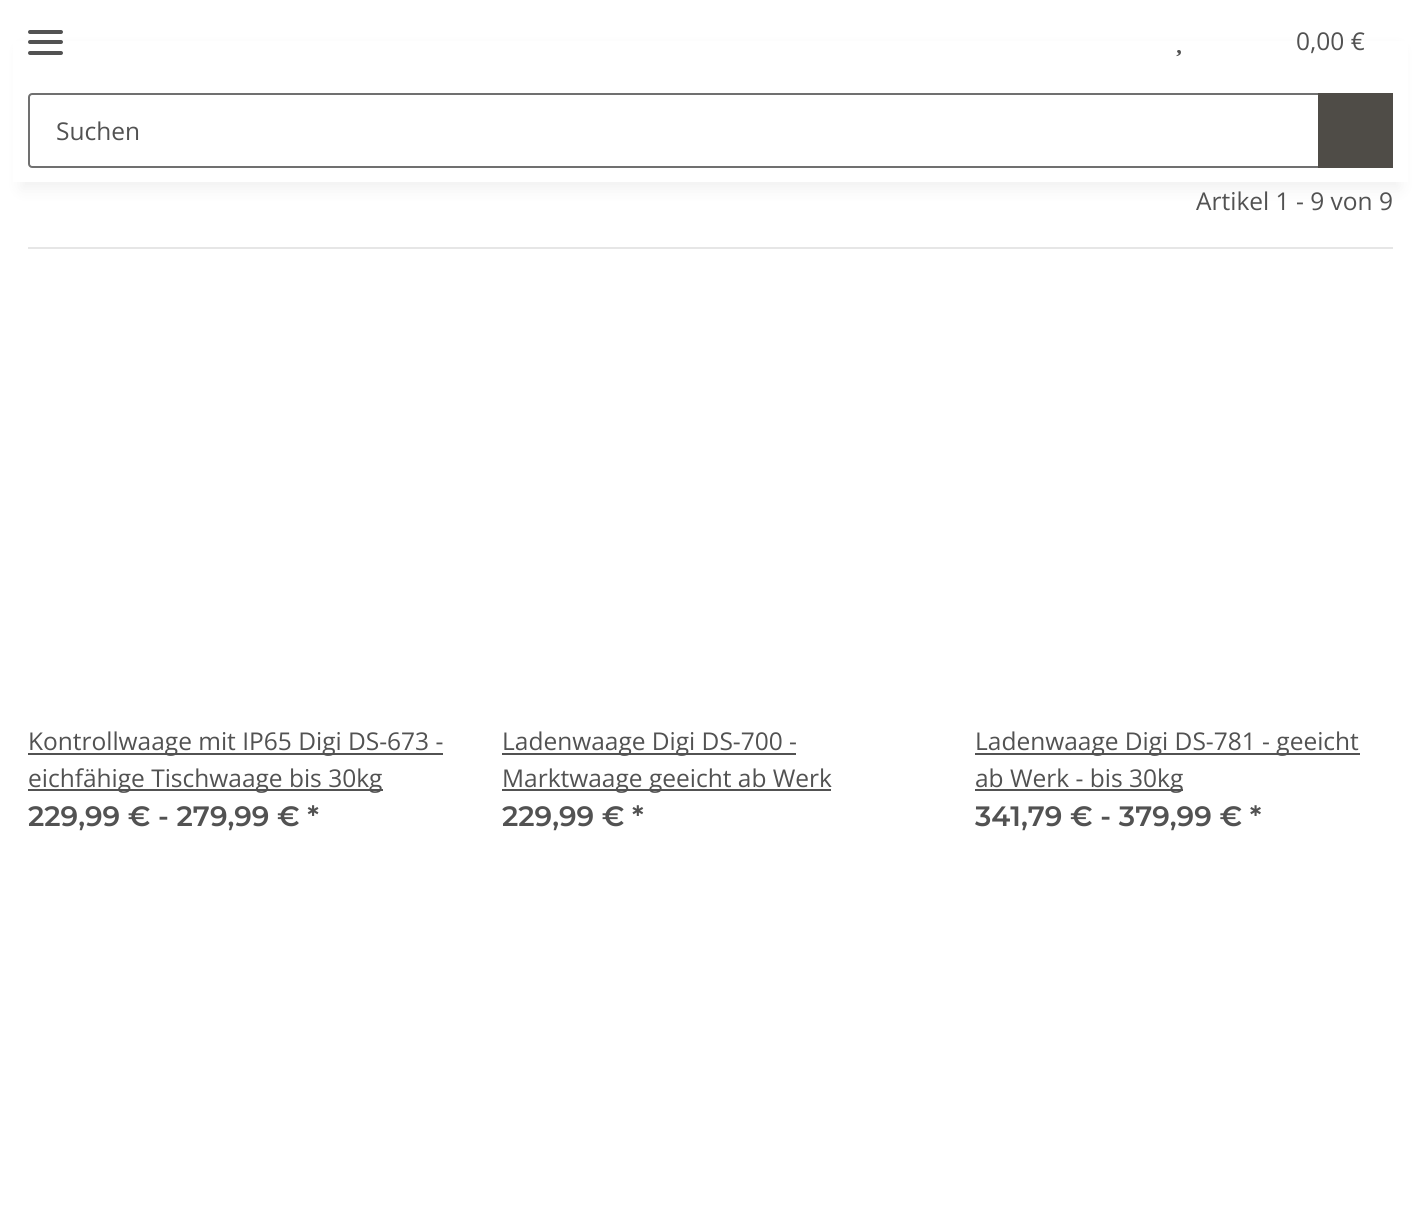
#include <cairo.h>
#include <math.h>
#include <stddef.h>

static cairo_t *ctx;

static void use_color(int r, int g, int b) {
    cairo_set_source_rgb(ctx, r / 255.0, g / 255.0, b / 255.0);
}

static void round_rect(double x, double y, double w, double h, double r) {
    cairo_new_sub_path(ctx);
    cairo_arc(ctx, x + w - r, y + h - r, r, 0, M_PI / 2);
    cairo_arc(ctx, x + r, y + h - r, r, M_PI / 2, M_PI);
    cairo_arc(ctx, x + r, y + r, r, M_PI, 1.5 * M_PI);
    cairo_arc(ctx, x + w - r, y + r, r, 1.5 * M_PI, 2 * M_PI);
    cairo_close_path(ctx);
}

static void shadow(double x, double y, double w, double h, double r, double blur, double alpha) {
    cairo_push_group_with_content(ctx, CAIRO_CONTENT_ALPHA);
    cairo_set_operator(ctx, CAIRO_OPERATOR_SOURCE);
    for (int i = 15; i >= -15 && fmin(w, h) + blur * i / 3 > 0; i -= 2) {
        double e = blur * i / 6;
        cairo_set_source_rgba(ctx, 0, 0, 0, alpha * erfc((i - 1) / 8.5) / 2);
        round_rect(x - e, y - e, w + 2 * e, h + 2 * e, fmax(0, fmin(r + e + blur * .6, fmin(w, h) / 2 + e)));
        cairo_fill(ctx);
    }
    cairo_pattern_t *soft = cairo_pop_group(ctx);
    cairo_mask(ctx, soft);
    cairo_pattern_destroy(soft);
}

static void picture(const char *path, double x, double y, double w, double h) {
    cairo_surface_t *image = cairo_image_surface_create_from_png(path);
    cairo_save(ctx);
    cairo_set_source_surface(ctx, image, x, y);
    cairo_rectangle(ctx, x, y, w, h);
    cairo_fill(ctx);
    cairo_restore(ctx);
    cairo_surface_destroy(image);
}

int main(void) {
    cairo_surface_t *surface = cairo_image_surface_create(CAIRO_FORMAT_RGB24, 1421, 1226);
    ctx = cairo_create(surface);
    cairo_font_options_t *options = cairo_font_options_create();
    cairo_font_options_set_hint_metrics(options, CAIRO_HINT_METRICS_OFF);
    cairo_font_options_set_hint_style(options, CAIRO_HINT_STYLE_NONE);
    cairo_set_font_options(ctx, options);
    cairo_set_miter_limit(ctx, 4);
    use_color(255, 255, 255);
    cairo_paint(ctx);
    use_color(0, 0, 0);
    shadow(21, 49, 1379, 140, 0, 8, 0.06);
    use_color(255, 255, 255);
    cairo_rectangle(ctx, 13, 41, 1395, 141);
    cairo_fill(ctx);
    use_color(82, 82, 82);
    round_rect(28, 40, 35, 4, 2);
    cairo_fill(ctx);
    round_rect(28, 30, 35, 4, 2);
    cairo_fill(ctx);
    round_rect(28, 51, 35, 4, 2);
    cairo_fill(ctx);
    picture("img1.png", 1176, 50, 5, 7);
    cairo_select_font_face(ctx, "Open Sans", CAIRO_FONT_SLANT_NORMAL, CAIRO_FONT_WEIGHT_NORMAL);
    cairo_set_font_size(ctx, 24.5);
    cairo_move_to(ctx, 1296, 50);
    cairo_show_text(ctx, "0,00 €");
    cairo_new_path(ctx);
    cairo_move_to(ctx, 32, 94);
    cairo_line_to(ctx, 1319, 94);
    cairo_line_to(ctx, 1319, 167);
    cairo_line_to(ctx, 32, 167);
    cairo_curve_to(ctx, 30.5, 167, 29, 165.5, 29, 164);
    cairo_line_to(ctx, 29, 97);
    cairo_curve_to(ctx, 29, 95.5, 30.5, 94, 32, 94);
    cairo_close_path(ctx);
    use_color(112, 112, 112);
    cairo_stroke(ctx);
    use_color(82, 82, 82);
    cairo_move_to(ctx, 56, 140);
    cairo_show_text(ctx, "Suchen");
    use_color(79, 76, 71);
    cairo_rectangle(ctx, 1318, 93, 75, 75);
    cairo_fill(ctx);
    use_color(82, 82, 82);
    cairo_move_to(ctx, 1196, 210);
    cairo_show_text(ctx, "Artikel 1 - 9 von 9");
    use_color(230, 230, 230);
    cairo_rectangle(ctx, 28, 247, 1365, 2);
    cairo_fill(ctx);
    use_color(82, 82, 82);
    cairo_rectangle(ctx, 28, 753, 415, 2);
    cairo_fill(ctx);
    cairo_move_to(ctx, 28, 750);
    cairo_show_text(ctx, "Kontrollwaage mit IP65 Digi DS-673 -");
    cairo_rectangle(ctx, 28, 789, 355, 2);
    cairo_fill(ctx);
    cairo_move_to(ctx, 28, 787);
    cairo_show_text(ctx, "eichfähige Tischwaage bis 30kg");
    cairo_select_font_face(ctx, "Montserrat SemiBold", CAIRO_FONT_SLANT_NORMAL, CAIRO_FONT_WEIGHT_NORMAL);
    cairo_set_font_size(ctx, 28);
    cairo_move_to(ctx, 28, 826);
    cairo_show_text(ctx, "229,99 € - 279,99 € *");
    cairo_rectangle(ctx, 502, 753, 294, 2);
    cairo_fill(ctx);
    cairo_select_font_face(ctx, "Open Sans", CAIRO_FONT_SLANT_NORMAL, CAIRO_FONT_WEIGHT_NORMAL);
    cairo_set_font_size(ctx, 24.5);
    cairo_move_to(ctx, 502, 750);
    cairo_show_text(ctx, "Ladenwaage Digi DS-700 -");
    cairo_rectangle(ctx, 502, 789, 329, 2);
    cairo_fill(ctx);
    cairo_move_to(ctx, 502, 787);
    cairo_show_text(ctx, "Marktwaage geeicht ab Werk");
    cairo_select_font_face(ctx, "Montserrat SemiBold", CAIRO_FONT_SLANT_NORMAL, CAIRO_FONT_WEIGHT_NORMAL);
    cairo_set_font_size(ctx, 28);
    cairo_move_to(ctx, 502, 826);
    cairo_show_text(ctx, "229,99 € *");
    cairo_rectangle(ctx, 975, 753, 385, 2);
    cairo_fill(ctx);
    cairo_select_font_face(ctx, "Open Sans", CAIRO_FONT_SLANT_NORMAL, CAIRO_FONT_WEIGHT_NORMAL);
    cairo_set_font_size(ctx, 24.5);
    cairo_move_to(ctx, 975, 750);
    cairo_show_text(ctx, "Ladenwaage Digi DS-781 - geeicht");
    cairo_rectangle(ctx, 975, 789, 208, 2);
    cairo_fill(ctx);
    cairo_move_to(ctx, 975, 787);
    cairo_show_text(ctx, "ab Werk - bis 30kg");
    cairo_select_font_face(ctx, "Montserrat SemiBold", CAIRO_FONT_SLANT_NORMAL, CAIRO_FONT_WEIGHT_NORMAL);
    cairo_set_font_size(ctx, 28);
    cairo_move_to(ctx, 975, 826);
    cairo_show_text(ctx, "341,79 € - 379,99 € *");
    cairo_surface_write_to_png(surface, "result.png");
    cairo_font_options_destroy(options);
    cairo_destroy(ctx);
    cairo_surface_destroy(surface);
    return 0;
}
